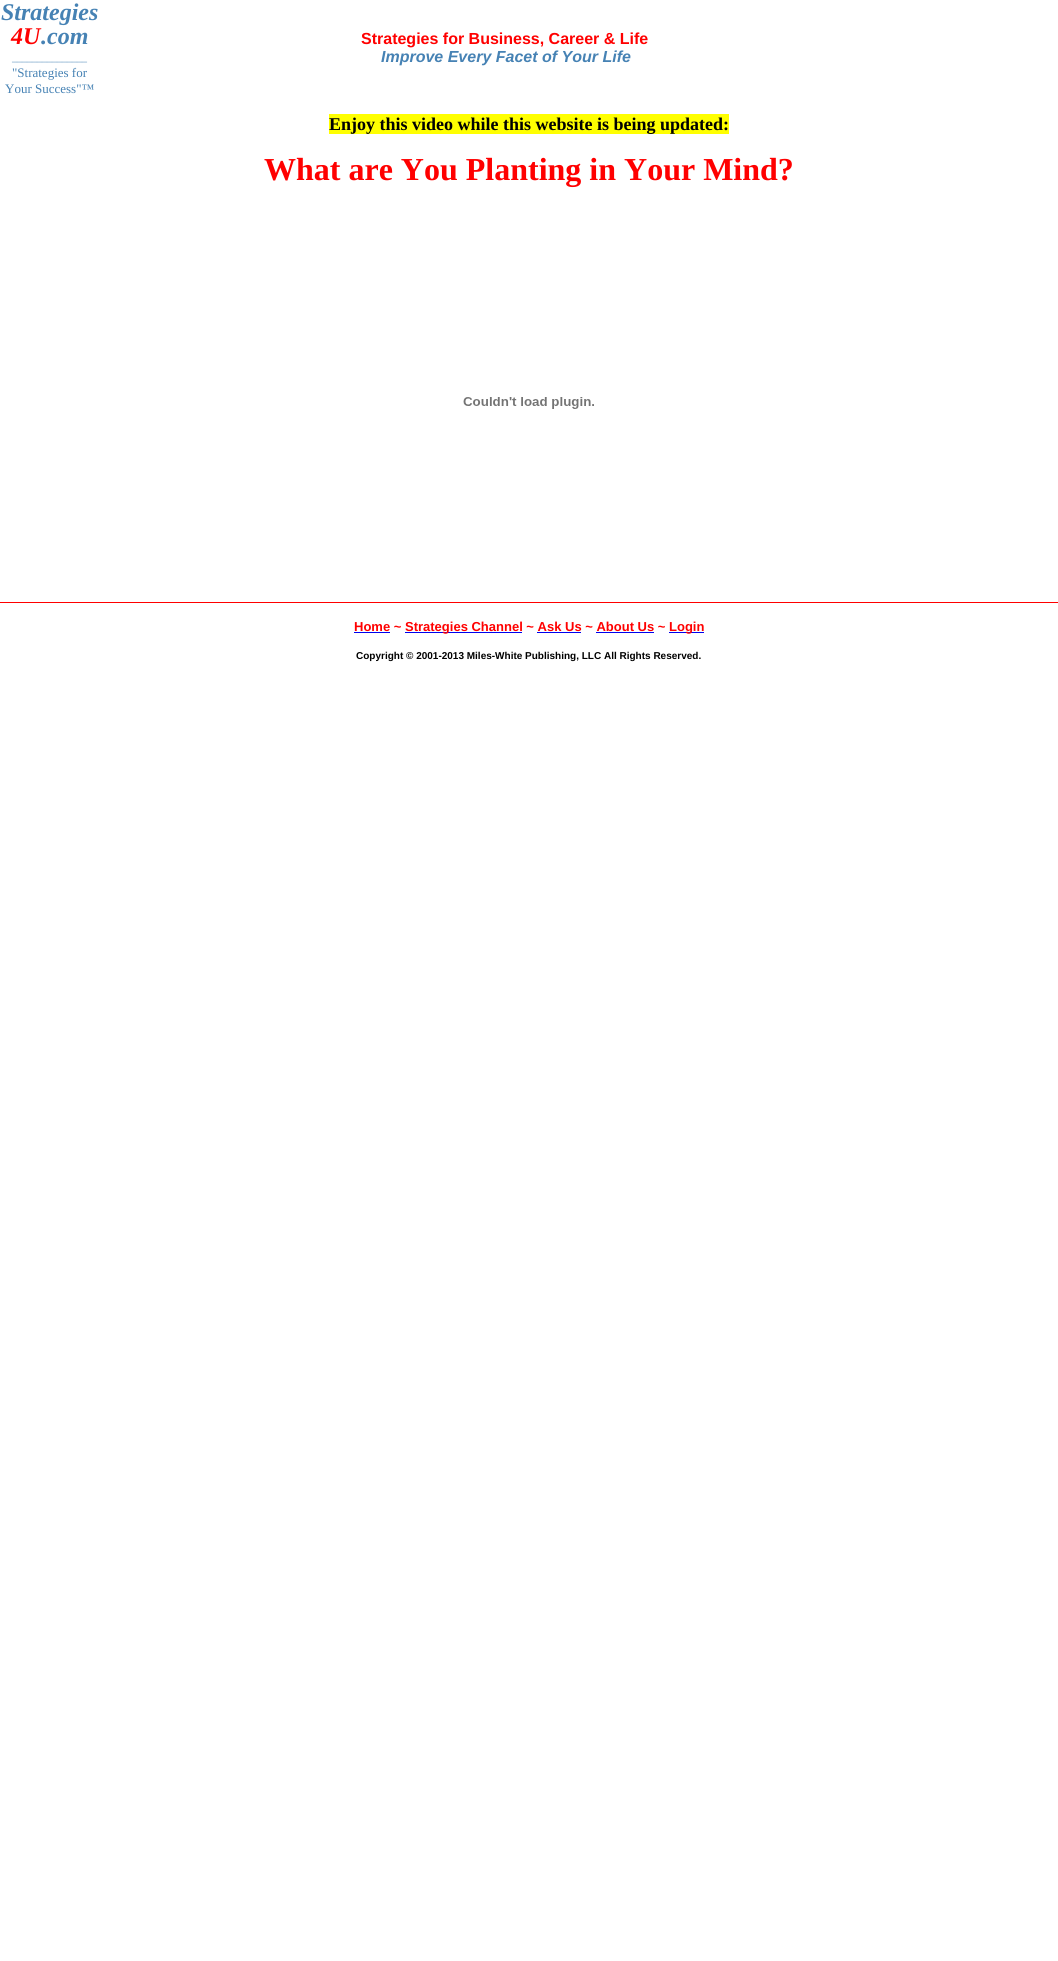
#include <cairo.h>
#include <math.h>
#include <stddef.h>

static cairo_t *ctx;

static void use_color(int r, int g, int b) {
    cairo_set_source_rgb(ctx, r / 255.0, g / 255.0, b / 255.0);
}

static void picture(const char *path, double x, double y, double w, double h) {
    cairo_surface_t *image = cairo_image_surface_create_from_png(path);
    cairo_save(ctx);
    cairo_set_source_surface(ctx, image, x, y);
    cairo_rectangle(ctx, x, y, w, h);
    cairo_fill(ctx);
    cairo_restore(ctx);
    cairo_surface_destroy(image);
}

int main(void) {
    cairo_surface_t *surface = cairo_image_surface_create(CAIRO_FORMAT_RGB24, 1058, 1961);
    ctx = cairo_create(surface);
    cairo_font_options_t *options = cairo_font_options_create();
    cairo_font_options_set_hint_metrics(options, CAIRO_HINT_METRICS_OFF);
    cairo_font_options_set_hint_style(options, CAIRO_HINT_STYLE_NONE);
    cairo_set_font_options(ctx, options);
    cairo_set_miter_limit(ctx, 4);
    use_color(255, 255, 255);
    cairo_paint(ctx);
    cairo_select_font_face(ctx, "Liberation Serif", CAIRO_FONT_SLANT_ITALIC, CAIRO_FONT_WEIGHT_BOLD);
    cairo_set_font_size(ctx, 24);
    use_color(70, 130, 180);
    cairo_move_to(ctx, 1, 20);
    cairo_show_text(ctx, "Strategies");
    use_color(255, 0, 0);
    cairo_move_to(ctx, 11, 44);
    cairo_show_text(ctx, "4U");
    use_color(70, 130, 180);
    cairo_move_to(ctx, 41, 44);
    cairo_show_text(ctx, ".com");
    cairo_select_font_face(ctx, "Liberation Sans", CAIRO_FONT_SLANT_NORMAL, CAIRO_FONT_WEIGHT_BOLD);
    cairo_set_font_size(ctx, 16);
    use_color(255, 0, 0);
    cairo_move_to(ctx, 361, 44);
    cairo_show_text(ctx, "Strategies for Business, Career & Life");
    cairo_select_font_face(ctx, "Liberation Sans", CAIRO_FONT_SLANT_ITALIC, CAIRO_FONT_WEIGHT_BOLD);
    use_color(70, 130, 180);
    cairo_move_to(ctx, 381, 62);
    cairo_show_text(ctx, "Improve Every Facet of Your Life");
    cairo_select_font_face(ctx, "Liberation Serif", CAIRO_FONT_SLANT_NORMAL, CAIRO_FONT_WEIGHT_NORMAL);
    cairo_set_font_size(ctx, 10);
    cairo_move_to(ctx, 12, 61);
    cairo_show_text(ctx, "_______________");
    cairo_set_font_size(ctx, 13);
    cairo_move_to(ctx, 12, 77);
    cairo_show_text(ctx, "\"Strategies for");
    cairo_move_to(ctx, 5, 93);
    cairo_show_text(ctx, "Your Success\"™");
    use_color(255, 255, 0);
    cairo_rectangle(ctx, 329, 114, 400, 20);
    cairo_fill(ctx);
    cairo_select_font_face(ctx, "Liberation Serif", CAIRO_FONT_SLANT_NORMAL, CAIRO_FONT_WEIGHT_BOLD);
    cairo_set_font_size(ctx, 18);
    use_color(0, 0, 0);
    cairo_move_to(ctx, 329, 130);
    cairo_show_text(ctx, "Enjoy this video while this website is being updated:");
    cairo_set_font_size(ctx, 32);
    use_color(255, 0, 0);
    cairo_move_to(ctx, 264, 180);
    cairo_show_text(ctx, "What are You Planting in Your Mind?");
    picture("img1.png", 463, 397, 131, 12);
    cairo_rectangle(ctx, 0, 602, 1058, 1);
    cairo_fill(ctx);
    cairo_select_font_face(ctx, "Liberation Sans", CAIRO_FONT_SLANT_NORMAL, CAIRO_FONT_WEIGHT_BOLD);
    cairo_set_font_size(ctx, 13);
    cairo_move_to(ctx, 354, 631);
    cairo_show_text(ctx, "Home ~");
    use_color(0, 0, 238);
    cairo_rectangle(ctx, 354, 632, 36, 1);
    cairo_fill(ctx);
    cairo_rectangle(ctx, 405, 632, 117, 1);
    cairo_fill(ctx);
    use_color(255, 0, 0);
    cairo_move_to(ctx, 405, 631);
    cairo_show_text(ctx, "Strategies Channel ~ Ask Us ~ About Us ~");
    use_color(0, 0, 238);
    cairo_rectangle(ctx, 669, 632, 35, 1);
    cairo_fill(ctx);
    use_color(255, 0, 0);
    cairo_move_to(ctx, 669, 631);
    cairo_show_text(ctx, "Login");
    use_color(0, 0, 238);
    cairo_rectangle(ctx, 537, 632, 44, 1);
    cairo_fill(ctx);
    cairo_rectangle(ctx, 596, 632, 58, 1);
    cairo_fill(ctx);
    cairo_set_font_size(ctx, 10);
    use_color(0, 0, 0);
    cairo_move_to(ctx, 356, 659);
    cairo_show_text(ctx, "Copyright © 2001-2013 Miles-White Publishing, LLC All Rights Reserved.");
    cairo_surface_write_to_png(surface, "result.png");
    cairo_font_options_destroy(options);
    cairo_destroy(ctx);
    cairo_surface_destroy(surface);
    return 0;
}
